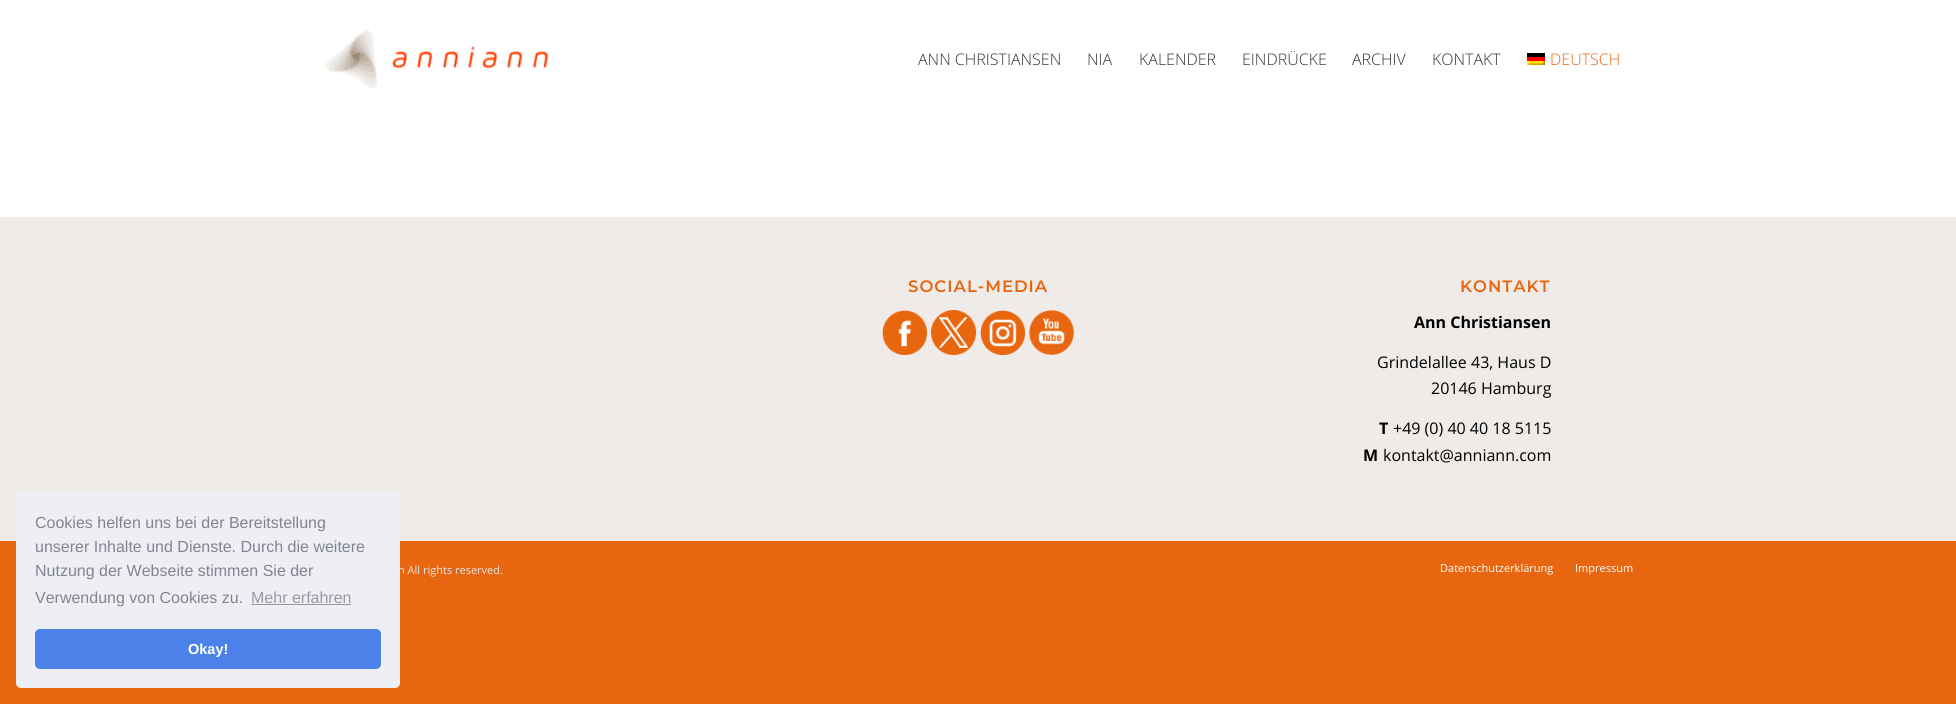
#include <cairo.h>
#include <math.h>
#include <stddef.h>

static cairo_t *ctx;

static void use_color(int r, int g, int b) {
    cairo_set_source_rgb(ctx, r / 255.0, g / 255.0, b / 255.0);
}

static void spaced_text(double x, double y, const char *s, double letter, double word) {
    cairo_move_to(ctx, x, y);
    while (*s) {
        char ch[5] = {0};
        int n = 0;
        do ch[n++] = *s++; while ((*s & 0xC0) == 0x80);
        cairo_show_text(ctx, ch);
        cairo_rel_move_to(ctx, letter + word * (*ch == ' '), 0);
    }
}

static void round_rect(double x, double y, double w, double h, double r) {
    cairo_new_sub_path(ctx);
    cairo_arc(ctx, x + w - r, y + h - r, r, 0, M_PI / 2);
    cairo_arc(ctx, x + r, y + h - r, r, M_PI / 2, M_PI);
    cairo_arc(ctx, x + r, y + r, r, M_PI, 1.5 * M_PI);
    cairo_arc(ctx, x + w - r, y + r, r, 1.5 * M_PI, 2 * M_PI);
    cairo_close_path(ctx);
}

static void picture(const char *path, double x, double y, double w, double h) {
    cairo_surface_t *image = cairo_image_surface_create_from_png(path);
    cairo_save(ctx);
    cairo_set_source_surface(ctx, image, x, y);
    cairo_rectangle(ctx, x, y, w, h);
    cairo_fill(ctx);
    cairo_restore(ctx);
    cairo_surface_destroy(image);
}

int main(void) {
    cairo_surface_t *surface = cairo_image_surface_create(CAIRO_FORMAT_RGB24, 1956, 704);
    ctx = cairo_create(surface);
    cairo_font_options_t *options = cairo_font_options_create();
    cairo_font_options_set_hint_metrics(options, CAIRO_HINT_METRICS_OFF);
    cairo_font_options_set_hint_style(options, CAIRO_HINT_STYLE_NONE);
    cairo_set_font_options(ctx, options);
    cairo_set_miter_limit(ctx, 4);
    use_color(232, 102, 15);
    cairo_paint(ctx);
    use_color(239, 235, 232);
    cairo_rectangle(ctx, 0, 217, 1956, 324);
    cairo_fill(ctx);
    cairo_select_font_face(ctx, "Open Sans", CAIRO_FONT_SLANT_NORMAL, CAIRO_FONT_WEIGHT_NORMAL);
    cairo_set_font_size(ctx, 11);
    use_color(232, 232, 232);
    cairo_move_to(ctx, 398, 574);
    cairo_show_text(ctx, "n All rights reserved.");
    use_color(237, 239, 245);
    round_rect(16, 492, 384, 196, 5);
    cairo_fill(ctx);
    cairo_select_font_face(ctx, "Liberation Sans", CAIRO_FONT_SLANT_NORMAL, CAIRO_FONT_WEIGHT_NORMAL);
    cairo_set_font_size(ctx, 16);
    use_color(131, 131, 145);
    cairo_move_to(ctx, 35, 528);
    cairo_show_text(ctx, "Cookies helfen uns bei der Bereitstellung");
    cairo_move_to(ctx, 35, 552);
    cairo_show_text(ctx, "unserer Inhalte und Dienste. Durch die weitere");
    cairo_move_to(ctx, 35, 576);
    cairo_show_text(ctx, "Nutzung der Webseite stimmen Sie der");
    cairo_move_to(ctx, 35, 603);
    cairo_show_text(ctx, "Verwendung von Cookies zu.");
    use_color(152, 153, 165);
    cairo_move_to(ctx, 251, 603);
    cairo_show_text(ctx, "Mehr erfahren");
    cairo_rectangle(ctx, 251, 604, 100, 1);
    cairo_fill(ctx);
    use_color(75, 129, 232);
    round_rect(35, 629, 346, 40, 5);
    cairo_fill(ctx);
    cairo_select_font_face(ctx, "Liberation Sans", CAIRO_FONT_SLANT_NORMAL, CAIRO_FONT_WEIGHT_BOLD);
    cairo_set_font_size(ctx, 14.5);
    use_color(255, 255, 255);
    cairo_move_to(ctx, 188, 654);
    cairo_show_text(ctx, "Okay!");
    cairo_rectangle(ctx, 0, 0, 1956, 217);
    cairo_fill(ctx);
    picture("img1.png", 325, 30, 224, 59);
    cairo_select_font_face(ctx, "Open Sans Light", CAIRO_FONT_SLANT_NORMAL, CAIRO_FONT_WEIGHT_NORMAL);
    cairo_set_font_size(ctx, 16);
    use_color(51, 51, 51);
    cairo_move_to(ctx, 918, 65);
    cairo_show_text(ctx, "ANN CHRISTIANSEN");
    cairo_move_to(ctx, 1087, 65);
    cairo_show_text(ctx, "NIA");
    cairo_move_to(ctx, 1139, 65);
    cairo_show_text(ctx, "KALENDER");
    cairo_move_to(ctx, 1242, 65);
    cairo_show_text(ctx, "EINDRÜCKE");
    cairo_move_to(ctx, 1352, 65);
    cairo_show_text(ctx, "ARCHIV");
    cairo_move_to(ctx, 1432, 65);
    cairo_show_text(ctx, "KONTAKT");
    picture("img2.png", 1527, 53, 18, 12);
    use_color(232, 102, 15);
    cairo_move_to(ctx, 1550, 65);
    cairo_show_text(ctx, "DEUTSCH");
    cairo_select_font_face(ctx, "Montserrat SemiBold", CAIRO_FONT_SLANT_NORMAL, CAIRO_FONT_WEIGHT_NORMAL);
    cairo_set_font_size(ctx, 16.5);
    spaced_text(908, 292, "SOCIAL-MEDIA", 1, 0);
    picture("img3.png", 882, 310, 45, 45);
    picture("img4.png", 931, 310, 45, 45);
    picture("img5.png", 980, 310, 45, 45);
    picture("img6.png", 1029, 310, 45, 45);
    spaced_text(1460, 292, "KONTAKT", 1, 0);
    cairo_select_font_face(ctx, "Open Sans", CAIRO_FONT_SLANT_NORMAL, CAIRO_FONT_WEIGHT_BOLD);
    cairo_set_font_size(ctx, 16);
    use_color(0, 0, 0);
    cairo_move_to(ctx, 1414, 328);
    cairo_show_text(ctx, "Ann Christiansen");
    cairo_select_font_face(ctx, "Open Sans", CAIRO_FONT_SLANT_NORMAL, CAIRO_FONT_WEIGHT_NORMAL);
    cairo_move_to(ctx, 1377, 368);
    cairo_show_text(ctx, "Grindelallee 43, Haus D");
    cairo_move_to(ctx, 1431, 394);
    cairo_show_text(ctx, "20146 Hamburg");
    cairo_select_font_face(ctx, "Open Sans", CAIRO_FONT_SLANT_NORMAL, CAIRO_FONT_WEIGHT_BOLD);
    cairo_move_to(ctx, 1379, 434);
    cairo_show_text(ctx, "T");
    cairo_select_font_face(ctx, "Open Sans", CAIRO_FONT_SLANT_NORMAL, CAIRO_FONT_WEIGHT_NORMAL);
    cairo_move_to(ctx, 1393, 434);
    cairo_show_text(ctx, "+49 (0) 40 40 18 5115");
    cairo_select_font_face(ctx, "Open Sans", CAIRO_FONT_SLANT_NORMAL, CAIRO_FONT_WEIGHT_BOLD);
    cairo_move_to(ctx, 1363, 461);
    cairo_show_text(ctx, "M");
    cairo_select_font_face(ctx, "Open Sans", CAIRO_FONT_SLANT_NORMAL, CAIRO_FONT_WEIGHT_NORMAL);
    cairo_move_to(ctx, 1383, 461);
    cairo_show_text(ctx, "kontakt@anniann.com");
    cairo_set_font_size(ctx, 11);
    use_color(255, 255, 255);
    cairo_move_to(ctx, 1440, 572);
    cairo_show_text(ctx, "Datenschutzerklärung");
    cairo_move_to(ctx, 1575, 572);
    cairo_show_text(ctx, "Impressum");
    cairo_surface_write_to_png(surface, "result.png");
    cairo_font_options_destroy(options);
    cairo_destroy(ctx);
    cairo_surface_destroy(surface);
    return 0;
}
